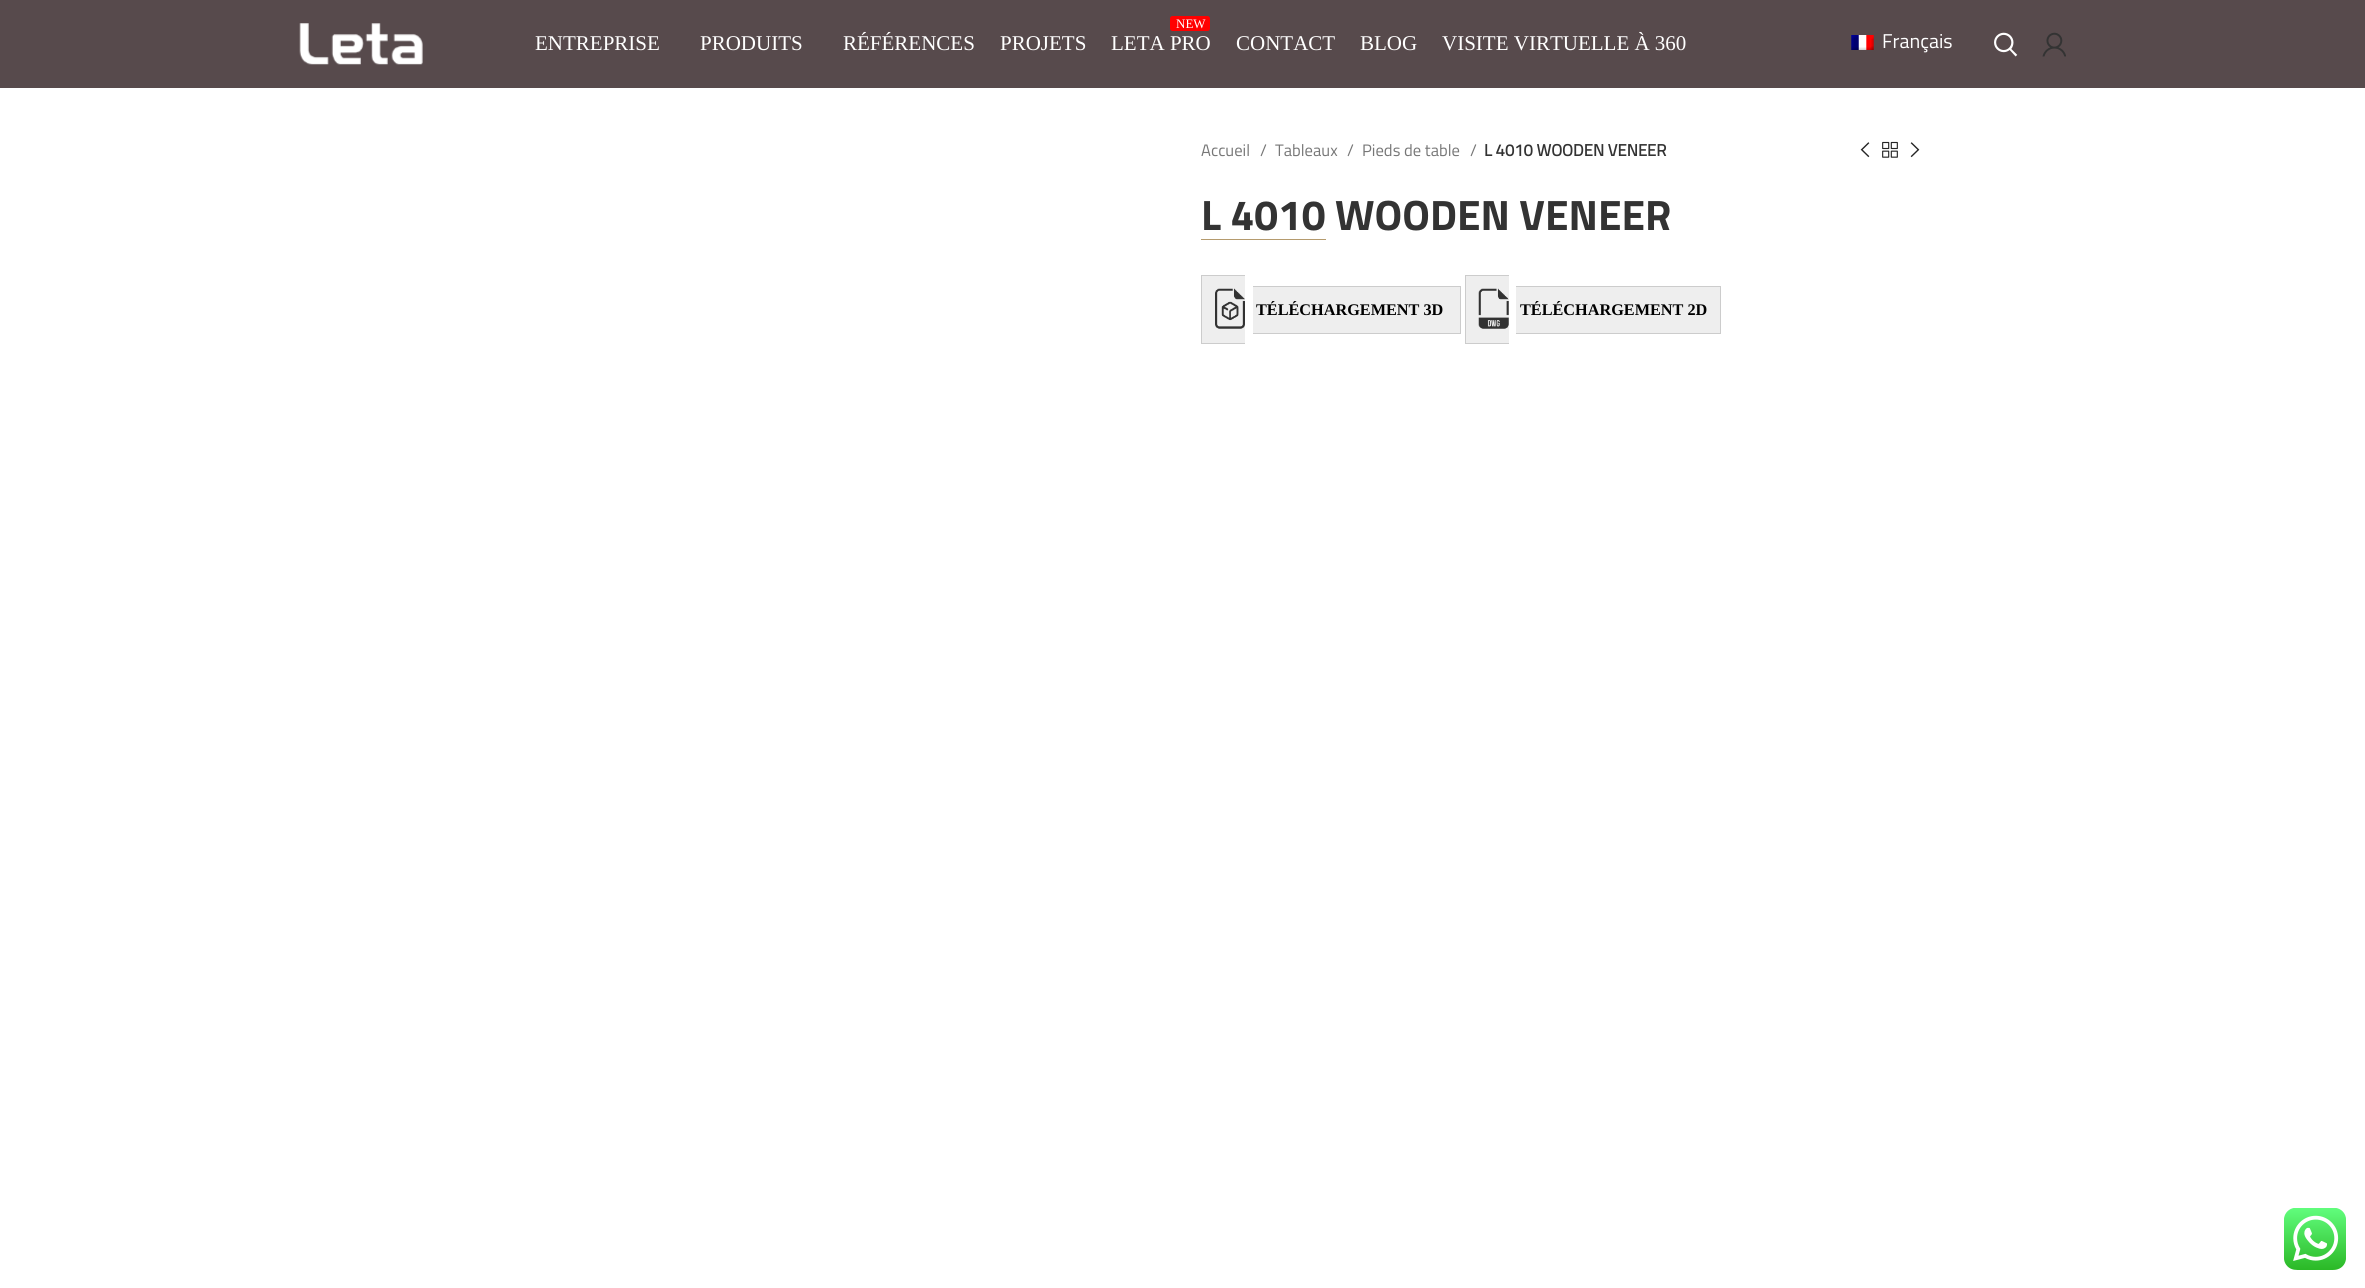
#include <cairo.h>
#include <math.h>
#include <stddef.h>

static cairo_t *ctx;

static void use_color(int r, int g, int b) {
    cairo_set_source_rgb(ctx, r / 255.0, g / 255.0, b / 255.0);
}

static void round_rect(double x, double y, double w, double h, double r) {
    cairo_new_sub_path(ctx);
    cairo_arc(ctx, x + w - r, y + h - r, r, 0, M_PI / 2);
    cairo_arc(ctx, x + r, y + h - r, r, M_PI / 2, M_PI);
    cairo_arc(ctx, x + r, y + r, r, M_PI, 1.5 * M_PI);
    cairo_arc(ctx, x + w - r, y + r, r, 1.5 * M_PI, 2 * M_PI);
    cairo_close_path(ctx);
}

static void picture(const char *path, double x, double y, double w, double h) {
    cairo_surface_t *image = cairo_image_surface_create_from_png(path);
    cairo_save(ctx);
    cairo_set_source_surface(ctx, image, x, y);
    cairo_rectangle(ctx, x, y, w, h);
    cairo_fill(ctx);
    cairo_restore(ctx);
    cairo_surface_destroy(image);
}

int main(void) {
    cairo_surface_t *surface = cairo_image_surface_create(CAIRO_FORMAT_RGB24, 2365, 1288);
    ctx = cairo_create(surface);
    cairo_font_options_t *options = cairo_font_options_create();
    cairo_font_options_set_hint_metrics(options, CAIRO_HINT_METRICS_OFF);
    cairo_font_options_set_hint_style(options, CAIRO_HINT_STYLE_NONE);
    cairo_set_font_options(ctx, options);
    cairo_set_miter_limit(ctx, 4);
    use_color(255, 255, 255);
    cairo_paint(ctx);
    use_color(87, 74, 76);
    cairo_rectangle(ctx, 0, 0, 2365, 88);
    cairo_fill(ctx);
    picture("img1.png", 299, 23, 124, 42);
    cairo_select_font_face(ctx, "Liberation Serif", CAIRO_FONT_SLANT_NORMAL, CAIRO_FONT_WEIGHT_NORMAL);
    cairo_set_font_size(ctx, 21);
    use_color(255, 255, 255);
    cairo_move_to(ctx, 535, 50);
    cairo_show_text(ctx, "ENTREPRISE");
    cairo_move_to(ctx, 700, 50);
    cairo_show_text(ctx, "PRODUITS");
    cairo_move_to(ctx, 843, 50);
    cairo_show_text(ctx, "RÉFÉRENCES");
    cairo_move_to(ctx, 1000, 50);
    cairo_show_text(ctx, "PROJETS");
    use_color(255, 0, 0);
    round_rect(1170, 16, 40, 15, 2.5);
    cairo_fill(ctx);
    cairo_set_font_size(ctx, 13);
    use_color(255, 255, 255);
    cairo_move_to(ctx, 1176, 28);
    cairo_show_text(ctx, "NEW");
    cairo_set_font_size(ctx, 21);
    cairo_move_to(ctx, 1111, 50);
    cairo_show_text(ctx, "LETA PRO");
    cairo_move_to(ctx, 1236, 50);
    cairo_show_text(ctx, "CONTACT");
    cairo_move_to(ctx, 1360, 50);
    cairo_show_text(ctx, "BLOG");
    cairo_move_to(ctx, 1442, 50);
    cairo_show_text(ctx, "VISITE VIRTUELLE À 360");
    picture("img2.png", 1851, 35, 23, 15);
    cairo_select_font_face(ctx, "Titillium Web", CAIRO_FONT_SLANT_NORMAL, CAIRO_FONT_WEIGHT_NORMAL);
    cairo_set_font_size(ctx, 20);
    cairo_move_to(ctx, 1882, 48);
    cairo_show_text(ctx, "Français");
    picture("img3.png", 1994, 32, 24, 25);
    picture("img4.png", 2042, 32, 24, 25);
    cairo_set_font_size(ctx, 16.6);
    use_color(119, 119, 119);
    cairo_move_to(ctx, 1201, 156);
    cairo_show_text(ctx, "Accueil");
    cairo_move_to(ctx, 1260, 156);
    cairo_show_text(ctx, "/");
    cairo_move_to(ctx, 1275, 156);
    cairo_show_text(ctx, "Tableaux");
    cairo_move_to(ctx, 1347, 156);
    cairo_show_text(ctx, "/");
    cairo_move_to(ctx, 1362, 156);
    cairo_show_text(ctx, "Pieds de table");
    cairo_move_to(ctx, 1470, 156);
    cairo_show_text(ctx, "/");
    cairo_select_font_face(ctx, "Titillium Web", CAIRO_FONT_SLANT_NORMAL, CAIRO_FONT_WEIGHT_BOLD);
    use_color(51, 51, 51);
    cairo_move_to(ctx, 1484, 156);
    cairo_show_text(ctx, "L 4010 WOODEN VENEER");
    picture("img5.png", 1860, 142, 10, 16);
    picture("img6.png", 1882, 141, 16, 17);
    picture("img7.png", 1910, 142, 10, 16);
    cairo_select_font_face(ctx, "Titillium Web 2", CAIRO_FONT_SLANT_NORMAL, CAIRO_FONT_WEIGHT_BOLD);
    cairo_set_font_size(ctx, 42.5);
    cairo_move_to(ctx, 1201, 230);
    cairo_show_text(ctx, "L 4010 WOODEN VENEER");
    use_color(181, 155, 110);
    cairo_rectangle(ctx, 1201, 239, 125, 1);
    cairo_fill(ctx);
    use_color(238, 238, 238);
    cairo_rectangle(ctx, 1202, 276, 43, 67);
    cairo_fill(ctx);
    picture("img8.png", 1215, 288, 30, 41);
    cairo_rectangle(ctx, 1253, 287, 207, 46);
    cairo_fill(ctx);
    cairo_select_font_face(ctx, "Liberation Serif", CAIRO_FONT_SLANT_NORMAL, CAIRO_FONT_WEIGHT_BOLD);
    cairo_set_font_size(ctx, 16.25);
    use_color(0, 0, 0);
    cairo_move_to(ctx, 1256, 315);
    cairo_show_text(ctx, "TÉLÉCHARGEMENT 3D");
    use_color(204, 204, 204);
    cairo_rectangle(ctx, 1201, 275, 44, 1);
    cairo_fill(ctx);
    cairo_rectangle(ctx, 1201, 343, 44, 1);
    cairo_fill(ctx);
    cairo_rectangle(ctx, 1201, 275, 1, 69);
    cairo_fill(ctx);
    cairo_rectangle(ctx, 1253, 286, 208, 1);
    cairo_fill(ctx);
    cairo_rectangle(ctx, 1460, 286, 1, 48);
    cairo_fill(ctx);
    cairo_rectangle(ctx, 1253, 333, 208, 1);
    cairo_fill(ctx);
    use_color(238, 238, 238);
    cairo_rectangle(ctx, 1466, 276, 43, 67);
    cairo_fill(ctx);
    picture("img9.png", 1478, 288, 31, 41);
    cairo_rectangle(ctx, 1516, 287, 204, 46);
    cairo_fill(ctx);
    use_color(0, 0, 0);
    cairo_move_to(ctx, 1520, 315);
    cairo_show_text(ctx, "TÉLÉCHARGEMENT 2D");
    use_color(204, 204, 204);
    cairo_rectangle(ctx, 1465, 275, 44, 1);
    cairo_fill(ctx);
    cairo_rectangle(ctx, 1465, 343, 44, 1);
    cairo_fill(ctx);
    cairo_rectangle(ctx, 1465, 275, 1, 69);
    cairo_fill(ctx);
    cairo_rectangle(ctx, 1516, 286, 205, 1);
    cairo_fill(ctx);
    cairo_rectangle(ctx, 1720, 286, 1, 48);
    cairo_fill(ctx);
    cairo_rectangle(ctx, 1516, 333, 205, 1);
    cairo_fill(ctx);
    picture("img10.png", 2284, 1208, 62, 62);
    cairo_surface_write_to_png(surface, "result.png");
    cairo_font_options_destroy(options);
    cairo_destroy(ctx);
    cairo_surface_destroy(surface);
    return 0;
}
